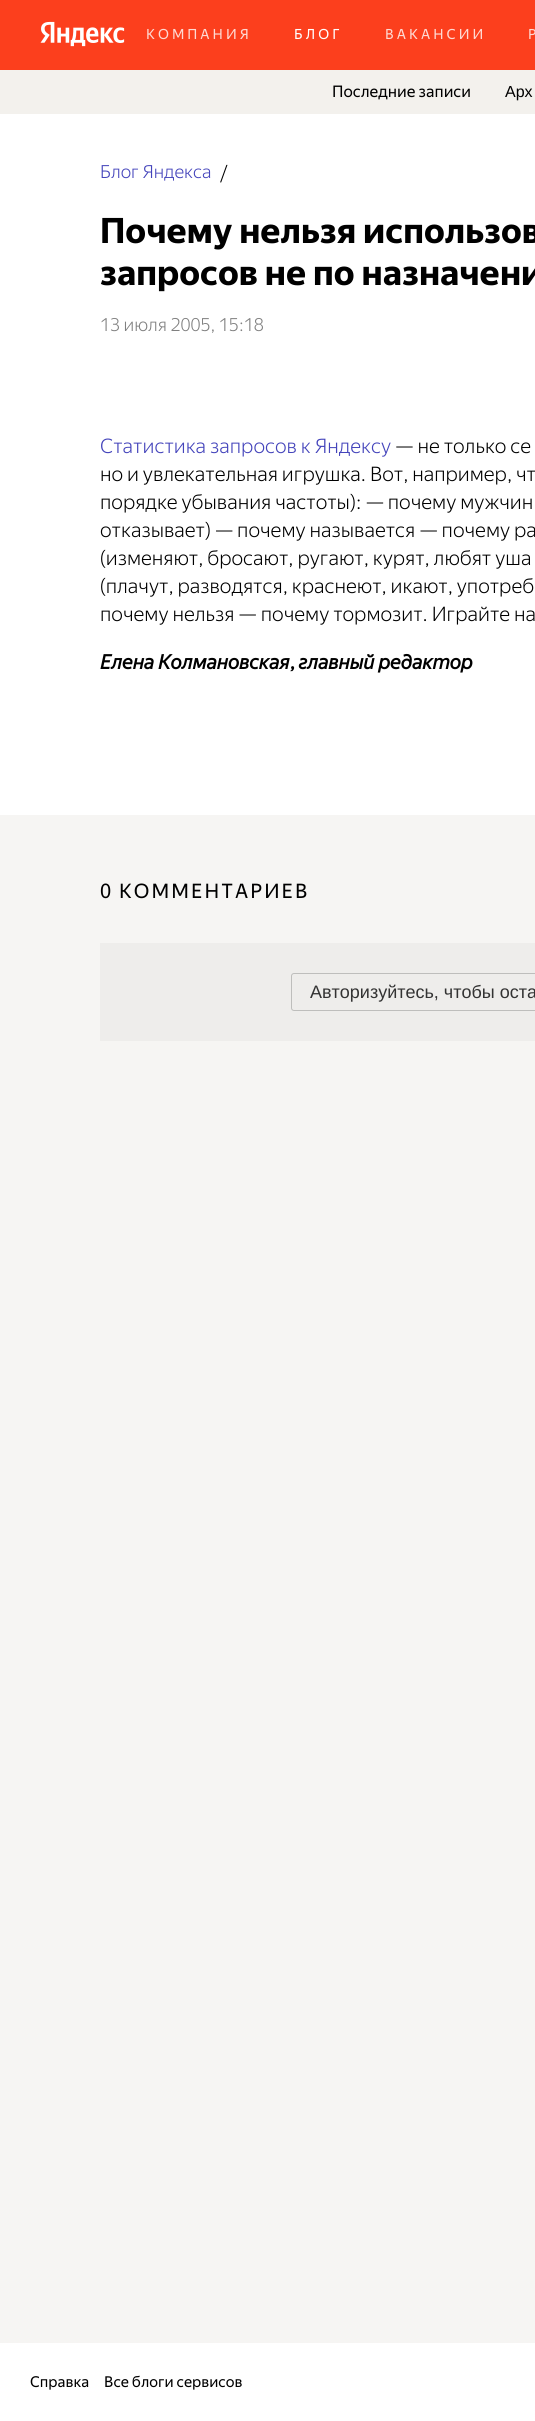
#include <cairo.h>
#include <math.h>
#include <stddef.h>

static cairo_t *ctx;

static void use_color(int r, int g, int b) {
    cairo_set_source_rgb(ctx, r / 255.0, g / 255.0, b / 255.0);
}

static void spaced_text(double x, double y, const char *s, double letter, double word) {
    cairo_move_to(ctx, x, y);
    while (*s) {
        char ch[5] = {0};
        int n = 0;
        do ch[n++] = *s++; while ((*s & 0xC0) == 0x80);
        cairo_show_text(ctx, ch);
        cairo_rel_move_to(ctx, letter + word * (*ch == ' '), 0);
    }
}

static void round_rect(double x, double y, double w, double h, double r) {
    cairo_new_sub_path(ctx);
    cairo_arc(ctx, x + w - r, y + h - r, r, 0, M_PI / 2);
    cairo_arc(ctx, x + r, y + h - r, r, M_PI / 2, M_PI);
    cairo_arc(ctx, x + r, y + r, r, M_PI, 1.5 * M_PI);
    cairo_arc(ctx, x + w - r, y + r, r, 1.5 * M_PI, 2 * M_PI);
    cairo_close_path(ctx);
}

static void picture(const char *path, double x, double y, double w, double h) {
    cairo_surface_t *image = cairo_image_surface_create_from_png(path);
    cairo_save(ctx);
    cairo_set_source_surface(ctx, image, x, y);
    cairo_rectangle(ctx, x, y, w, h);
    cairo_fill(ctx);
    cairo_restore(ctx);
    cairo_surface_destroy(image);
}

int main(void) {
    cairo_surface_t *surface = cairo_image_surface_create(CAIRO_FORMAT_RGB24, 535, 2421);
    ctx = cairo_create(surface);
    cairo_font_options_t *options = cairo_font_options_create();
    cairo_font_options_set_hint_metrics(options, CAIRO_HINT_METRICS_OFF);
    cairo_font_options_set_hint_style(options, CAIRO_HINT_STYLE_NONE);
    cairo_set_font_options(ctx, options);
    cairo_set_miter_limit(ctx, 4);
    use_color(246, 245, 243);
    cairo_paint(ctx);
    use_color(252, 63, 29);
    cairo_rectangle(ctx, 0, 0, 535, 70);
    cairo_fill(ctx);
    picture("img1.png", 40, 21, 85, 26);
    cairo_select_font_face(ctx, "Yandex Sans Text", CAIRO_FONT_SLANT_NORMAL, CAIRO_FONT_WEIGHT_NORMAL);
    cairo_set_font_size(ctx, 14);
    use_color(254, 217, 210);
    spaced_text(146, 39, "КОМПАНИЯ", 3, 0);
    use_color(255, 255, 255);
    spaced_text(294, 39, "БЛОГ", 3, 0);
    use_color(254, 217, 210);
    spaced_text(385, 39, "ВАКАНСИИ", 3, 0);
    spaced_text(528, 39, "Р", 3, 0);
    use_color(243, 241, 237);
    cairo_rectangle(ctx, 0, 70, 535, 44);
    cairo_fill(ctx);
    cairo_set_font_size(ctx, 16);
    use_color(0, 0, 0);
    cairo_move_to(ctx, 332, 97);
    cairo_show_text(ctx, "Последние записи");
    cairo_select_font_face(ctx, "Liberation Sans", CAIRO_FONT_SLANT_NORMAL, CAIRO_FONT_WEIGHT_NORMAL);
    cairo_move_to(ctx, 505, 97);
    cairo_show_text(ctx, "Арх");
    use_color(255, 255, 255);
    cairo_rectangle(ctx, 0, 114, 535, 701);
    cairo_fill(ctx);
    cairo_select_font_face(ctx, "Yandex Sans Text Light", CAIRO_FONT_SLANT_NORMAL, CAIRO_FONT_WEIGHT_NORMAL);
    cairo_set_font_size(ctx, 18);
    use_color(68, 68, 187);
    cairo_move_to(ctx, 100, 178);
    cairo_show_text(ctx, "Блог Яндекса");
    cairo_set_font_size(ctx, 20);
    use_color(0, 0, 0);
    cairo_move_to(ctx, 220, 180);
    cairo_show_text(ctx, "/");
    cairo_select_font_face(ctx, "Yandex Sans Text", CAIRO_FONT_SLANT_NORMAL, CAIRO_FONT_WEIGHT_BOLD);
    cairo_set_font_size(ctx, 35);
    cairo_move_to(ctx, 100, 243);
    cairo_show_text(ctx, "Почему нельзя использов");
    cairo_move_to(ctx, 100, 285);
    cairo_show_text(ctx, "запросов не по назначени");
    cairo_select_font_face(ctx, "Yandex Sans Text Light", CAIRO_FONT_SLANT_NORMAL, CAIRO_FONT_WEIGHT_NORMAL);
    cairo_set_font_size(ctx, 18);
    use_color(128, 128, 128);
    cairo_move_to(ctx, 100, 331);
    cairo_show_text(ctx, "13 июля 2005, 15:18");
    cairo_set_font_size(ctx, 20);
    use_color(68, 68, 187);
    cairo_move_to(ctx, 100, 453);
    cairo_show_text(ctx, "Статистика запросов к Яндексу");
    use_color(0, 0, 0);
    cairo_move_to(ctx, 395, 453);
    cairo_show_text(ctx, "— не только се");
    cairo_move_to(ctx, 100, 481);
    cairo_show_text(ctx, "но и увлекательная игрушка. Вот, например, чт");
    cairo_move_to(ctx, 100, 509);
    cairo_show_text(ctx, "порядке убывания частоты): — почему мужчин");
    cairo_move_to(ctx, 100, 537);
    cairo_show_text(ctx, "отказывает) — почему называется — почему ра");
    cairo_move_to(ctx, 100, 565);
    cairo_show_text(ctx, "(изменяют, бросают, ругают, курят, любят уша");
    cairo_move_to(ctx, 100, 593);
    cairo_show_text(ctx, "(плачут, разводятся, краснеют, икают, употреб");
    cairo_move_to(ctx, 100, 621);
    cairo_show_text(ctx, "почему нельзя — почему тормозит. Играйте на");
    cairo_select_font_face(ctx, "Yandex Sans Text", CAIRO_FONT_SLANT_ITALIC, CAIRO_FONT_WEIGHT_BOLD);
    cairo_move_to(ctx, 100, 669);
    cairo_show_text(ctx, "Елена Колмановская, главный редактор");
    cairo_select_font_face(ctx, "Yandex Sans Text", CAIRO_FONT_SLANT_NORMAL, CAIRO_FONT_WEIGHT_NORMAL);
    spaced_text(100, 898, "0 КОММЕНТАРИЕВ", 2, 0);
    use_color(238, 237, 235);
    cairo_rectangle(ctx, 100, 943, 435, 98);
    cairo_fill(ctx);
    round_rect(291.5, 973.5, 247, 37, 2.5);
    use_color(190, 190, 188);
    cairo_set_line_width(ctx, 1);
    cairo_stroke(ctx);
    cairo_select_font_face(ctx, "Liberation Sans", CAIRO_FONT_SLANT_NORMAL, CAIRO_FONT_WEIGHT_NORMAL);
    cairo_set_font_size(ctx, 18);
    use_color(51, 51, 51);
    cairo_move_to(ctx, 310, 998);
    cairo_show_text(ctx, "Авторизуйтесь, чтобы оста");
    use_color(255, 255, 255);
    cairo_rectangle(ctx, 0, 2343, 535, 78);
    cairo_fill(ctx);
    cairo_select_font_face(ctx, "Yandex Sans Text", CAIRO_FONT_SLANT_NORMAL, CAIRO_FONT_WEIGHT_NORMAL);
    cairo_set_font_size(ctx, 15);
    use_color(0, 0, 0);
    cairo_move_to(ctx, 30, 2387);
    cairo_show_text(ctx, "Справка");
    cairo_move_to(ctx, 104, 2387);
    cairo_show_text(ctx, "Все блоги сервисов");
    cairo_surface_write_to_png(surface, "result.png");
    cairo_font_options_destroy(options);
    cairo_destroy(ctx);
    cairo_surface_destroy(surface);
    return 0;
}
